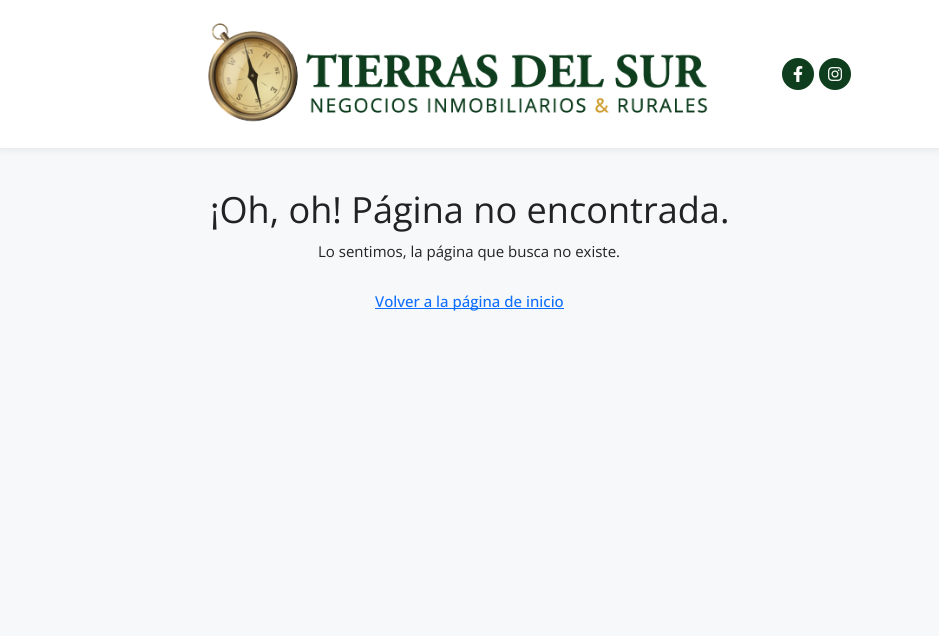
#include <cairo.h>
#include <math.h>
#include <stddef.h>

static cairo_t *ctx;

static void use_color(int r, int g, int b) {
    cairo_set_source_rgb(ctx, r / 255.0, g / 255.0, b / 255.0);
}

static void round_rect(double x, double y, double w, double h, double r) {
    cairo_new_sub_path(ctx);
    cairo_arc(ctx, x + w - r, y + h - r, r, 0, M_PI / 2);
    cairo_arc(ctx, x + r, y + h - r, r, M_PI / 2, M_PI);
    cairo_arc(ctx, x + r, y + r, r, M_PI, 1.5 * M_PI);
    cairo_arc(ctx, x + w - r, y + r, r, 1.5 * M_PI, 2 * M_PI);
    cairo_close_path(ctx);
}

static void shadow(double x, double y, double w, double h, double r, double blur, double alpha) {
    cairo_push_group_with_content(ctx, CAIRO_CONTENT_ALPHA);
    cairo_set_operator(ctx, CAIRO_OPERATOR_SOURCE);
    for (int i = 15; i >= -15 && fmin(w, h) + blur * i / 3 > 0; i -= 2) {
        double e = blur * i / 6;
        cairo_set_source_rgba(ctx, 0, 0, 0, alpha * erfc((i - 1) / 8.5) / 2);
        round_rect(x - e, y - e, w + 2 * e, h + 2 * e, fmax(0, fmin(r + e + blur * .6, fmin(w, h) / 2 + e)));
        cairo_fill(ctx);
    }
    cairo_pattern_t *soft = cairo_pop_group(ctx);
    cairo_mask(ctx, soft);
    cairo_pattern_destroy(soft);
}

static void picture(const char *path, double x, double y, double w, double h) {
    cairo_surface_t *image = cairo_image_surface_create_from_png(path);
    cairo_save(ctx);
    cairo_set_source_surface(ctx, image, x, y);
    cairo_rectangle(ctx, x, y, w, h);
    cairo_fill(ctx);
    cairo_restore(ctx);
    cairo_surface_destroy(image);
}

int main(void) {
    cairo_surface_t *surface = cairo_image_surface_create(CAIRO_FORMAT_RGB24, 939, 636);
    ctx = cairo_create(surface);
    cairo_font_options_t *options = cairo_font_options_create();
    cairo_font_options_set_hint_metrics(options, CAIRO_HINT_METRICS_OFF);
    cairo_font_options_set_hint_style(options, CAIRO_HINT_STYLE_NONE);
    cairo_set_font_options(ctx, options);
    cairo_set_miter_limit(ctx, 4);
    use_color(247, 248, 250);
    cairo_paint(ctx);
    use_color(0, 0, 0);
    shadow(0, 0, 939, 148, 0, 5, 0.1);
    use_color(255, 255, 255);
    cairo_rectangle(ctx, 0, 0, 939, 148);
    cairo_fill(ctx);
    picture("img1.png", 208, 23, 500, 99);
    use_color(14, 62, 30);
    cairo_arc(ctx, 798, 74, 16, 0, 2 * M_PI);
    cairo_fill(ctx);
    picture("img2.png", 793, 66, 10, 16);
    cairo_arc(ctx, 835, 74, 16, 0, 2 * M_PI);
    cairo_fill(ctx);
    picture("img3.png", 828, 67, 14, 14);
    cairo_select_font_face(ctx, "Open Sans", CAIRO_FONT_SLANT_NORMAL, CAIRO_FONT_WEIGHT_NORMAL);
    cairo_set_font_size(ctx, 36.1);
    use_color(34, 34, 34);
    cairo_move_to(ctx, 210, 223);
    cairo_show_text(ctx, "¡Oh, oh! Página no encontrada.");
    cairo_set_font_size(ctx, 15);
    cairo_move_to(ctx, 318, 257);
    cairo_show_text(ctx, "Lo sentimos, la página que busca no existe.");
    use_color(13, 110, 253);
    cairo_rectangle(ctx, 375, 308, 189, 1);
    cairo_fill(ctx);
    cairo_select_font_face(ctx, "Open Sans Medium", CAIRO_FONT_SLANT_NORMAL, CAIRO_FONT_WEIGHT_NORMAL);
    cairo_move_to(ctx, 375, 307);
    cairo_show_text(ctx, "Volver a la página de inicio");
    cairo_surface_write_to_png(surface, "result.png");
    cairo_font_options_destroy(options);
    cairo_destroy(ctx);
    cairo_surface_destroy(surface);
    return 0;
}
